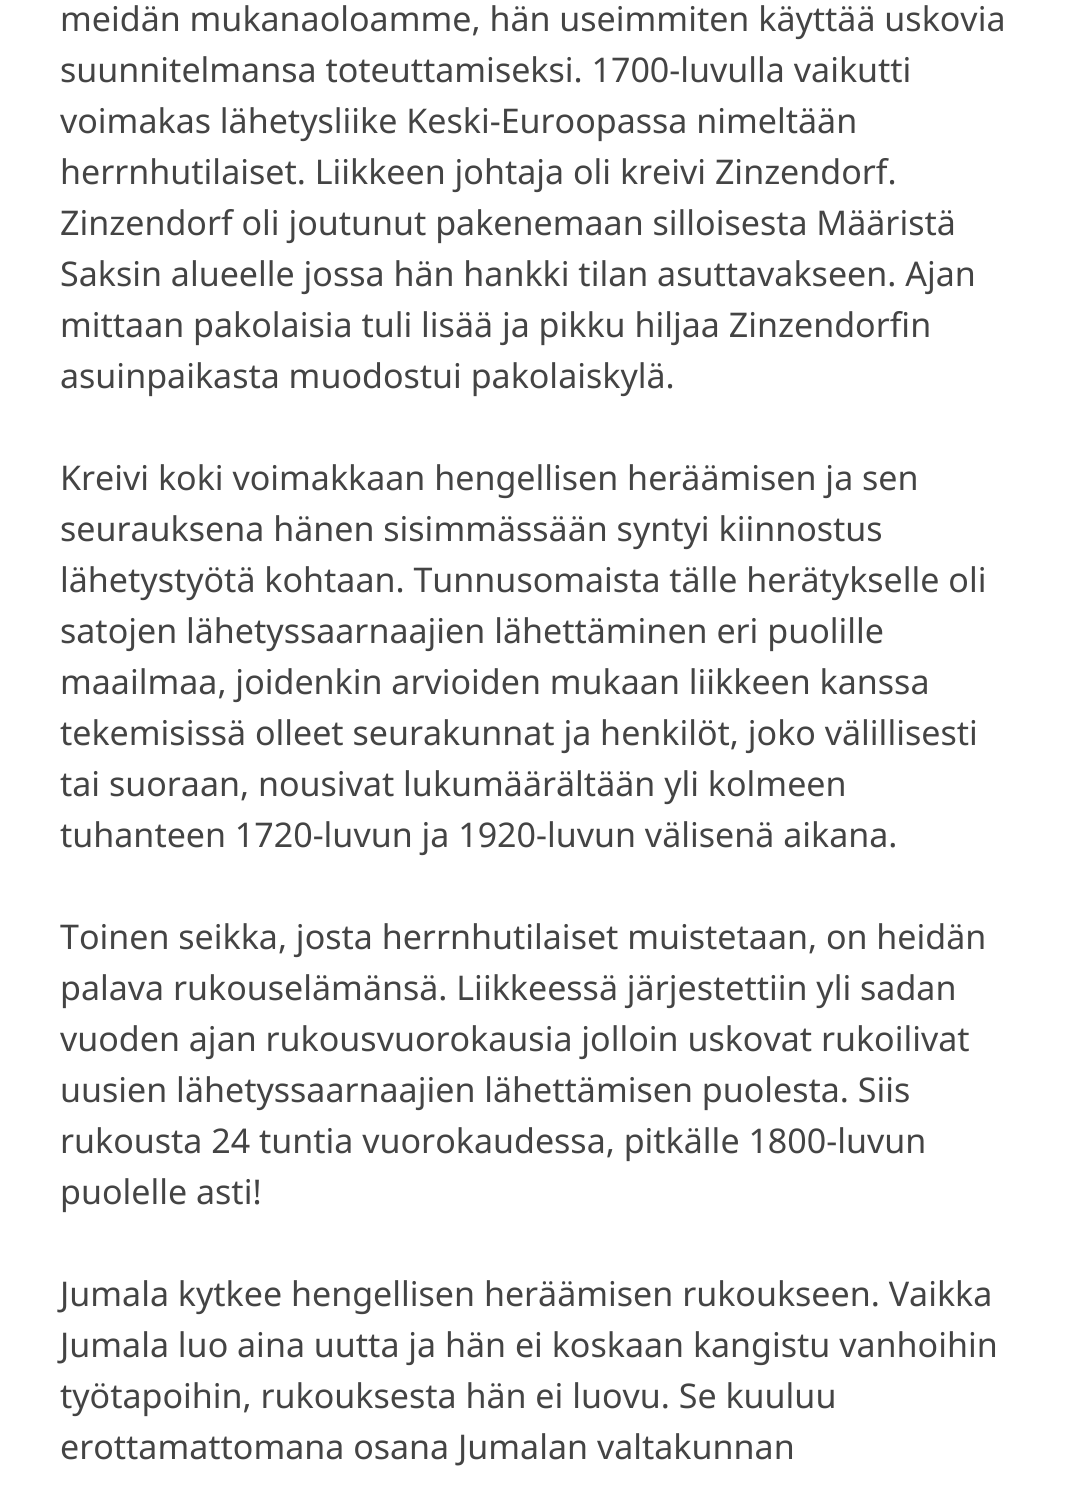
#include <cairo.h>
#include <math.h>
#include <stddef.h>

static cairo_t *ctx;

static void use_color(int r, int g, int b) {
    cairo_set_source_rgb(ctx, r / 255.0, g / 255.0, b / 255.0);
}

int main(void) {
    cairo_surface_t *surface = cairo_image_surface_create(CAIRO_FORMAT_RGB24, 1080, 1498);
    ctx = cairo_create(surface);
    cairo_font_options_t *options = cairo_font_options_create();
    cairo_font_options_set_hint_metrics(options, CAIRO_HINT_METRICS_OFF);
    cairo_font_options_set_hint_style(options, CAIRO_HINT_STYLE_NONE);
    cairo_set_font_options(ctx, options);
    cairo_set_miter_limit(ctx, 4);
    use_color(255, 255, 255);
    cairo_paint(ctx);
    cairo_select_font_face(ctx, "Noto Sans", CAIRO_FONT_SLANT_NORMAL, CAIRO_FONT_WEIGHT_NORMAL);
    cairo_set_font_size(ctx, 34);
    use_color(68, 68, 68);
    cairo_move_to(ctx, 60, 31);
    cairo_show_text(ctx, "meidän mukanaoloamme, hän useimmiten käyttää uskovia");
    cairo_move_to(ctx, 60, 82);
    cairo_show_text(ctx, "suunnitelmansa toteuttamiseksi. 1700-luvulla vaikutti");
    cairo_move_to(ctx, 60, 133);
    cairo_show_text(ctx, "voimakas lähetysliike Keski-Euroopassa nimeltään");
    cairo_move_to(ctx, 60, 184);
    cairo_show_text(ctx, "herrnhutilaiset. Liikkeen johtaja oli kreivi Zinzendorf.");
    cairo_move_to(ctx, 60, 235);
    cairo_show_text(ctx, "Zinzendorf oli joutunut pakenemaan silloisesta Määristä");
    cairo_move_to(ctx, 60, 286);
    cairo_show_text(ctx, "Saksin alueelle jossa hän hankki tilan asuttavakseen. Ajan");
    cairo_move_to(ctx, 60, 337);
    cairo_show_text(ctx, "mittaan pakolaisia tuli lisää ja pikku hiljaa Zinzendorfin");
    cairo_move_to(ctx, 60, 388);
    cairo_show_text(ctx, "asuinpaikasta muodostui pakolaiskylä.");
    cairo_move_to(ctx, 60, 490);
    cairo_show_text(ctx, "Kreivi koki voimakkaan hengellisen heräämisen ja sen");
    cairo_move_to(ctx, 60, 541);
    cairo_show_text(ctx, "seurauksena hänen sisimmässään syntyi kiinnostus");
    cairo_move_to(ctx, 60, 592);
    cairo_show_text(ctx, "lähetystyötä kohtaan. Tunnusomaista tälle herätykselle oli");
    cairo_move_to(ctx, 60, 643);
    cairo_show_text(ctx, "satojen lähetyssaarnaajien lähettäminen eri puolille");
    cairo_move_to(ctx, 60, 694);
    cairo_show_text(ctx, "maailmaa, joidenkin arvioiden mukaan liikkeen kanssa");
    cairo_move_to(ctx, 60, 745);
    cairo_show_text(ctx, "tekemisissä olleet seurakunnat ja henkilöt, joko välillisesti");
    cairo_move_to(ctx, 60, 796);
    cairo_show_text(ctx, "tai suoraan, nousivat lukumäärältään yli kolmeen");
    cairo_move_to(ctx, 60, 847);
    cairo_show_text(ctx, "tuhanteen 1720-luvun ja 1920-luvun välisenä aikana.");
    cairo_move_to(ctx, 60, 949);
    cairo_show_text(ctx, "Toinen seikka, josta herrnhutilaiset muistetaan, on heidän");
    cairo_move_to(ctx, 60, 1000);
    cairo_show_text(ctx, "palava rukouselämänsä. Liikkeessä järjestettiin yli sadan");
    cairo_move_to(ctx, 60, 1051);
    cairo_show_text(ctx, "vuoden ajan rukousvuorokausia jolloin uskovat rukoilivat");
    cairo_move_to(ctx, 60, 1102);
    cairo_show_text(ctx, "uusien lähetyssaarnaajien lähettämisen puolesta. Siis");
    cairo_move_to(ctx, 60, 1153);
    cairo_show_text(ctx, "rukousta 24 tuntia vuorokaudessa, pitkälle 1800-luvun");
    cairo_move_to(ctx, 60, 1204);
    cairo_show_text(ctx, "puolelle asti!");
    cairo_move_to(ctx, 60, 1306);
    cairo_show_text(ctx, "Jumala kytkee hengellisen heräämisen rukoukseen. Vaikka");
    cairo_move_to(ctx, 60, 1357);
    cairo_show_text(ctx, "Jumala luo aina uutta ja hän ei koskaan kangistu vanhoihin");
    cairo_move_to(ctx, 60, 1408);
    cairo_show_text(ctx, "työtapoihin, rukouksesta hän ei luovu. Se kuuluu");
    cairo_move_to(ctx, 60, 1459);
    cairo_show_text(ctx, "erottamattomana osana Jumalan valtakunnan");
    cairo_surface_write_to_png(surface, "result.png");
    cairo_font_options_destroy(options);
    cairo_destroy(ctx);
    cairo_surface_destroy(surface);
    return 0;
}
